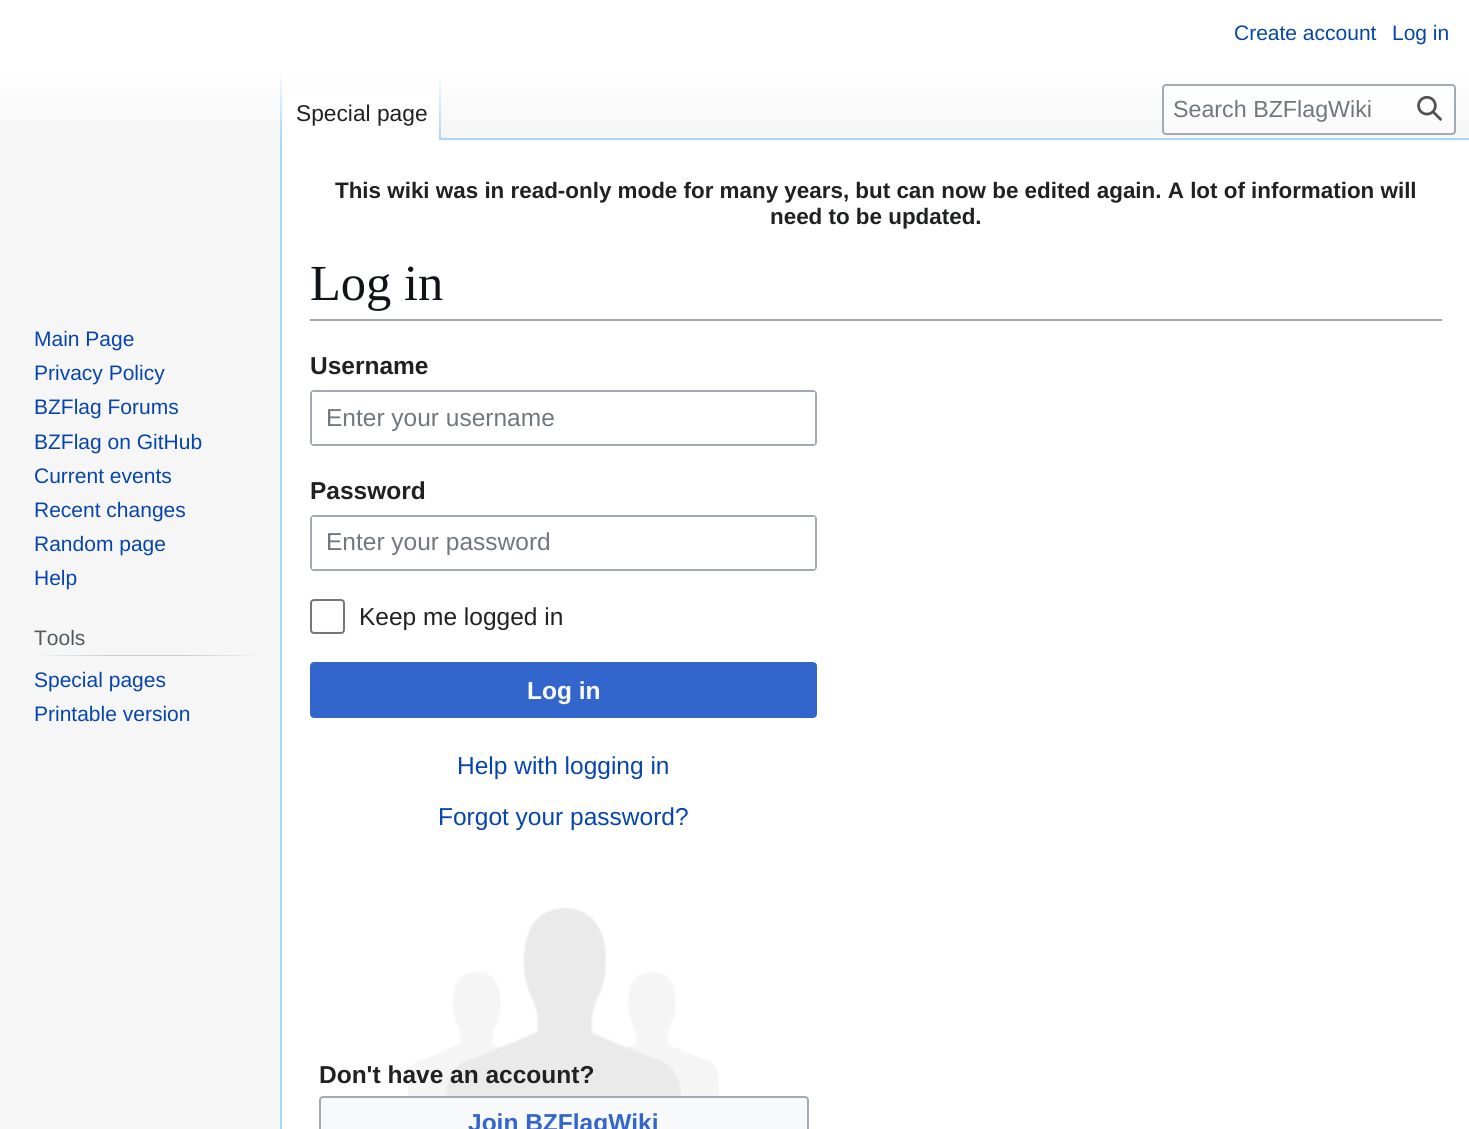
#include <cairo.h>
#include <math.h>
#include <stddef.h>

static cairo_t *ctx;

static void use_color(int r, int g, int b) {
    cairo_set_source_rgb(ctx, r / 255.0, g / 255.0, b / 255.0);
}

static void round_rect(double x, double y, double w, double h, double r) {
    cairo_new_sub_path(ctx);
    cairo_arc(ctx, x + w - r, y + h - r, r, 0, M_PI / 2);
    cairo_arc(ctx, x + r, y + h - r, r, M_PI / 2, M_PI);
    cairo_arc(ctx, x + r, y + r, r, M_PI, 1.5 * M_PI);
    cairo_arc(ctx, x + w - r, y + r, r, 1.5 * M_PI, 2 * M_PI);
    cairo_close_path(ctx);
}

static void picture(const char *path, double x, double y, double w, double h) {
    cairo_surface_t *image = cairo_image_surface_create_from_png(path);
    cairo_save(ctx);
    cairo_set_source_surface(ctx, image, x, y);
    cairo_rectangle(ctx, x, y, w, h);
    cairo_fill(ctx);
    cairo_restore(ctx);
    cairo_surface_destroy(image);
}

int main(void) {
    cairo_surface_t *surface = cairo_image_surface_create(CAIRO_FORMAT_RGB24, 1469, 1129);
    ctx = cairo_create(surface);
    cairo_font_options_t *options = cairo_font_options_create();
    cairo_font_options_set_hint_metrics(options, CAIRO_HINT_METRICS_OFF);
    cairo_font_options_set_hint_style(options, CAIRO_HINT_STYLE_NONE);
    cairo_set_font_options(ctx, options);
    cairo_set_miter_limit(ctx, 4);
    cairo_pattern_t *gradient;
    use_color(246, 246, 246);
    cairo_paint(ctx);
    gradient = cairo_pattern_create_linear(735, 0, 735, 140);
    cairo_pattern_add_color_stop_rgba(gradient, 0.5, 1, 1, 1, 1);
    cairo_pattern_add_color_stop_rgba(gradient, 1, 0.965, 0.965, 0.965, 1);
    cairo_set_source(ctx, gradient);
    cairo_pattern_destroy(gradient);
    cairo_rectangle(ctx, 0, 0, 1469, 121);
    cairo_fill(ctx);
    cairo_select_font_face(ctx, "Liberation Sans", CAIRO_FONT_SLANT_NORMAL, CAIRO_FONT_WEIGHT_NORMAL);
    cairo_set_font_size(ctx, 21);
    use_color(6, 69, 173);
    cairo_move_to(ctx, 1234, 40);
    cairo_show_text(ctx, "Create account");
    cairo_move_to(ctx, 1392, 40);
    cairo_show_text(ctx, "Log in");
    use_color(167, 215, 249);
    cairo_rectangle(ctx, 280, 138, 2, 991);
    cairo_fill(ctx);
    gradient = cairo_pattern_create_linear(281, 70, 281, 140);
    cairo_pattern_add_color_stop_rgba(gradient, 0, 0.655, 0.843, 0.976, 0);
    cairo_pattern_add_color_stop_rgba(gradient, 1, 0.655, 0.843, 0.976, 1);
    cairo_set_source(ctx, gradient);
    cairo_pattern_destroy(gradient);
    cairo_rectangle(ctx, 280, 70, 2, 70);
    cairo_fill(ctx);
    use_color(255, 255, 255);
    cairo_rectangle(ctx, 282, 89, 157, 51);
    cairo_fill(ctx);
    gradient = cairo_pattern_create_linear(440, 70, 440, 140);
    cairo_pattern_add_color_stop_rgba(gradient, 0, 1, 1, 1, 1);
    cairo_pattern_add_color_stop_rgba(gradient, 1, 0.655, 0.843, 0.976, 1);
    cairo_set_source(ctx, gradient);
    cairo_pattern_destroy(gradient);
    cairo_rectangle(ctx, 439, 70, 2, 70);
    cairo_fill(ctx);
    cairo_set_font_size(ctx, 22.75);
    use_color(32, 33, 34);
    cairo_move_to(ctx, 296, 121);
    cairo_show_text(ctx, "Special page");
    cairo_set_source_rgba(ctx, 1, 1, 1, 0.5);
    round_rect(1163, 85, 292, 49, 3);
    cairo_fill_preserve(ctx);
    use_color(162, 169, 177);
    cairo_stroke(ctx);
    cairo_set_font_size(ctx, 23.25);
    use_color(114, 119, 125);
    cairo_move_to(ctx, 1173, 117);
    cairo_show_text(ctx, "Search BZFlagWiki");
    picture("img1.png", 1417, 95, 26, 26);
    cairo_set_font_size(ctx, 21);
    use_color(6, 69, 173);
    cairo_move_to(ctx, 34, 346);
    cairo_show_text(ctx, "Main Page");
    cairo_move_to(ctx, 34, 380);
    cairo_show_text(ctx, "Privacy Policy");
    cairo_move_to(ctx, 34, 414);
    cairo_show_text(ctx, "BZFlag Forums");
    cairo_move_to(ctx, 34, 449);
    cairo_show_text(ctx, "BZFlag on GitHub");
    cairo_move_to(ctx, 34, 483);
    cairo_show_text(ctx, "Current events");
    cairo_move_to(ctx, 34, 517);
    cairo_show_text(ctx, "Recent changes");
    cairo_move_to(ctx, 34, 551);
    cairo_show_text(ctx, "Random page");
    cairo_move_to(ctx, 34, 585);
    cairo_show_text(ctx, "Help");
    gradient = cairo_pattern_create_linear(33, 655, 263, 655);
    cairo_pattern_add_color_stop_rgba(gradient, 0, 0.965, 0.965, 0.965, 1);
    cairo_pattern_add_color_stop_rgba(gradient, 0.33, 0.784, 0.8, 0.82, 1);
    cairo_pattern_add_color_stop_rgba(gradient, 0.66, 0.784, 0.8, 0.82, 1);
    cairo_pattern_add_color_stop_rgba(gradient, 1, 0.965, 0.965, 0.965, 1);
    cairo_set_source(ctx, gradient);
    cairo_pattern_destroy(gradient);
    cairo_rectangle(ctx, 33, 655, 230, 1);
    cairo_fill(ctx);
    use_color(84, 89, 93);
    cairo_move_to(ctx, 34, 645);
    cairo_show_text(ctx, "Tools");
    use_color(6, 69, 173);
    cairo_move_to(ctx, 34, 687);
    cairo_show_text(ctx, "Special pages");
    cairo_move_to(ctx, 34, 721);
    cairo_show_text(ctx, "Printable version");
    use_color(255, 255, 255);
    cairo_rectangle(ctx, 282, 140, 1187, 989);
    cairo_fill(ctx);
    use_color(167, 215, 249);
    cairo_rectangle(ctx, 441, 138, 1028, 2);
    cairo_fill(ctx);
    cairo_select_font_face(ctx, "Liberation Sans", CAIRO_FONT_SLANT_NORMAL, CAIRO_FONT_WEIGHT_BOLD);
    cairo_set_font_size(ctx, 22.4);
    use_color(32, 33, 34);
    cairo_move_to(ctx, 335, 198);
    cairo_show_text(ctx, "This wiki was in read-only mode for many years, but can now be edited again. A lot of information will");
    cairo_move_to(ctx, 770, 224);
    cairo_show_text(ctx, "need to be updated.");
    use_color(162, 169, 177);
    cairo_rectangle(ctx, 310, 319, 1132, 2);
    cairo_fill(ctx);
    cairo_select_font_face(ctx, "Liberation Serif", CAIRO_FONT_SLANT_NORMAL, CAIRO_FONT_WEIGHT_NORMAL);
    cairo_set_font_size(ctx, 50.5);
    use_color(16, 20, 24);
    cairo_move_to(ctx, 310, 300);
    cairo_show_text(ctx, "Log in");
    cairo_select_font_face(ctx, "Liberation Sans", CAIRO_FONT_SLANT_NORMAL, CAIRO_FONT_WEIGHT_BOLD);
    cairo_set_font_size(ctx, 24.5);
    use_color(32, 33, 34);
    cairo_move_to(ctx, 310, 374);
    cairo_show_text(ctx, "Username");
    use_color(162, 169, 177);
    cairo_set_fill_rule(ctx, CAIRO_FILL_RULE_EVEN_ODD);
    cairo_new_path(ctx);
    cairo_move_to(ctx, 314, 390);
    cairo_curve_to(ctx, 312, 390, 310, 392, 310, 394);
    cairo_line_to(ctx, 310, 442);
    cairo_curve_to(ctx, 310, 444, 312, 446, 314, 446);
    cairo_line_to(ctx, 813, 446);
    cairo_curve_to(ctx, 815, 446, 817, 444, 817, 442);
    cairo_line_to(ctx, 817, 394);
    cairo_curve_to(ctx, 817, 392, 815, 390, 813, 390);
    cairo_close_path(ctx);
    cairo_move_to(ctx, 312, 392);
    cairo_line_to(ctx, 312, 444);
    cairo_line_to(ctx, 815, 444);
    cairo_line_to(ctx, 815, 392);
    cairo_close_path(ctx);
    cairo_fill(ctx);
    cairo_select_font_face(ctx, "Liberation Sans", CAIRO_FONT_SLANT_NORMAL, CAIRO_FONT_WEIGHT_NORMAL);
    use_color(114, 119, 125);
    cairo_move_to(ctx, 326, 426);
    cairo_show_text(ctx, "Enter your username");
    cairo_select_font_face(ctx, "Liberation Sans", CAIRO_FONT_SLANT_NORMAL, CAIRO_FONT_WEIGHT_BOLD);
    use_color(32, 33, 34);
    cairo_move_to(ctx, 310, 499);
    cairo_show_text(ctx, "Password");
    use_color(162, 169, 177);
    cairo_new_path(ctx);
    cairo_move_to(ctx, 314, 515);
    cairo_curve_to(ctx, 312, 515, 310, 517, 310, 519);
    cairo_line_to(ctx, 310, 567);
    cairo_curve_to(ctx, 310, 569, 312, 571, 314, 571);
    cairo_line_to(ctx, 813, 571);
    cairo_curve_to(ctx, 815, 571, 817, 569, 817, 567);
    cairo_line_to(ctx, 817, 519);
    cairo_curve_to(ctx, 817, 517, 815, 515, 813, 515);
    cairo_close_path(ctx);
    cairo_move_to(ctx, 312, 517);
    cairo_line_to(ctx, 312, 569);
    cairo_line_to(ctx, 815, 569);
    cairo_line_to(ctx, 815, 517);
    cairo_close_path(ctx);
    cairo_fill(ctx);
    cairo_select_font_face(ctx, "Liberation Sans", CAIRO_FONT_SLANT_NORMAL, CAIRO_FONT_WEIGHT_NORMAL);
    use_color(114, 119, 125);
    cairo_move_to(ctx, 326, 550);
    cairo_show_text(ctx, "Enter your password");
    round_rect(311, 600, 33, 33, 3);
    cairo_stroke(ctx);
    use_color(32, 33, 34);
    cairo_move_to(ctx, 359, 625);
    cairo_show_text(ctx, "Keep me logged in");
    use_color(51, 102, 204);
    round_rect(311, 663, 505, 54, 3);
    cairo_fill_preserve(ctx);
    cairo_stroke(ctx);
    cairo_select_font_face(ctx, "Liberation Sans", CAIRO_FONT_SLANT_NORMAL, CAIRO_FONT_WEIGHT_BOLD);
    use_color(255, 255, 255);
    cairo_move_to(ctx, 527, 699);
    cairo_show_text(ctx, "Log in");
    cairo_select_font_face(ctx, "Liberation Sans", CAIRO_FONT_SLANT_NORMAL, CAIRO_FONT_WEIGHT_NORMAL);
    use_color(6, 69, 173);
    cairo_move_to(ctx, 457, 774);
    cairo_show_text(ctx, "Help with logging in");
    cairo_move_to(ctx, 438, 825);
    cairo_show_text(ctx, "Forgot your password?");
    picture("img2.png", 408, 908, 311, 188);
    cairo_select_font_face(ctx, "Liberation Sans", CAIRO_FONT_SLANT_NORMAL, CAIRO_FONT_WEIGHT_BOLD);
    use_color(32, 33, 34);
    cairo_move_to(ctx, 319, 1083);
    cairo_show_text(ctx, "Don't have an account?");
    use_color(248, 249, 250);
    round_rect(320, 1097, 488, 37, 3);
    cairo_fill_preserve(ctx);
    use_color(162, 169, 177);
    cairo_stroke(ctx);
    use_color(51, 102, 204);
    cairo_move_to(ctx, 468, 1131);
    cairo_show_text(ctx, "Join BZFlagWiki");
    cairo_surface_write_to_png(surface, "result.png");
    cairo_font_options_destroy(options);
    cairo_destroy(ctx);
    cairo_surface_destroy(surface);
    return 0;
}
